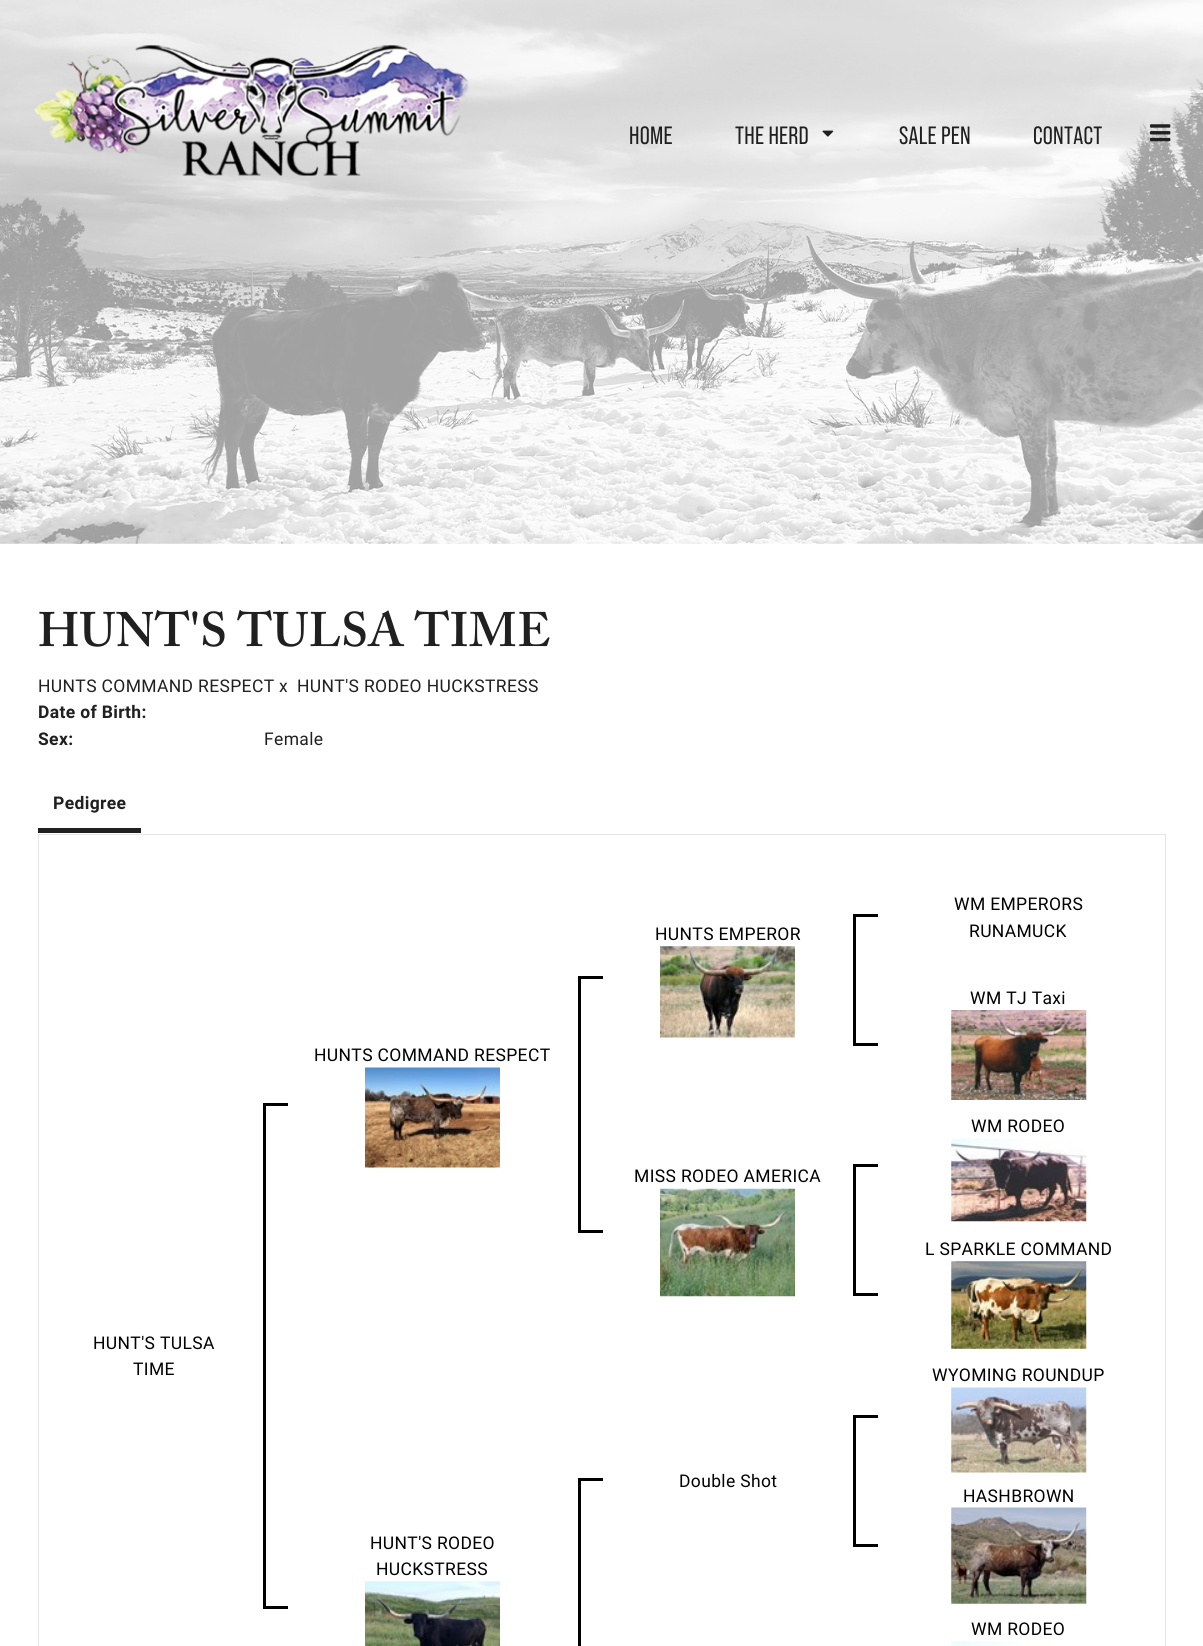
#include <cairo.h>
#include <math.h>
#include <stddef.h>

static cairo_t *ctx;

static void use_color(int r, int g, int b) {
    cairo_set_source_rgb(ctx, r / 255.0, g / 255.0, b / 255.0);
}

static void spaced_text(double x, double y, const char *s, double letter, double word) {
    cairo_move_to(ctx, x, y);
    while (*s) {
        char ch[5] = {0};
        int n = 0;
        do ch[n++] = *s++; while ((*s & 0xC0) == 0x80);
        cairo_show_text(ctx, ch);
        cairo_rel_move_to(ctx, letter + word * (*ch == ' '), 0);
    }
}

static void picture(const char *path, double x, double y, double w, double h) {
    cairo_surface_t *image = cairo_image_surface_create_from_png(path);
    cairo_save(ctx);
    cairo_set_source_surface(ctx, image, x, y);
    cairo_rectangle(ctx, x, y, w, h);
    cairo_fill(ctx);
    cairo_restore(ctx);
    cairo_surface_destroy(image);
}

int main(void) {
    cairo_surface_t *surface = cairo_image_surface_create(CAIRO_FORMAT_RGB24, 1203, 1646);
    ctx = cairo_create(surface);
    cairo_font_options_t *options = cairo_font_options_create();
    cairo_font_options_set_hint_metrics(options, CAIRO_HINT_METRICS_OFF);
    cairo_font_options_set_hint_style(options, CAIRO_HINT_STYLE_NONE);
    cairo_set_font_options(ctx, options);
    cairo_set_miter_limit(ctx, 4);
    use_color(255, 255, 255);
    cairo_paint(ctx);
    picture("img1.png", 0, 0, 1203, 544);
    picture("img2.png", 34, 45, 435, 131);
    cairo_select_font_face(ctx, "Bebas Neue", CAIRO_FONT_SLANT_NORMAL, CAIRO_FONT_WEIGHT_NORMAL);
    cairo_set_font_size(ctx, 25);
    use_color(32, 32, 32);
    spaced_text(629, 144, "HOME", 0.25, 0);
    spaced_text(735, 144, "THE HERD", 0.25, 0);
    picture("img3.png", 822, 130, 12, 7);
    spaced_text(899, 144, "SALE PEN", 0.25, 0);
    spaced_text(1033, 144, "CONTACT", 0.25, 0);
    picture("img4.png", 1150, 124, 21, 18);
    cairo_select_font_face(ctx, "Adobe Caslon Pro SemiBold", CAIRO_FONT_SLANT_NORMAL, CAIRO_FONT_WEIGHT_NORMAL);
    cairo_set_font_size(ctx, 48.1);
    spaced_text(38, 646, "HUNT'S TULSA TIME", 0.35, 0);
    cairo_select_font_face(ctx, "Roboto", CAIRO_FONT_SLANT_NORMAL, CAIRO_FONT_WEIGHT_NORMAL);
    cairo_set_font_size(ctx, 17.5);
    spaced_text(38, 692, "HUNTS COMMAND RESPECT x", 0.35, 0);
    spaced_text(297, 692, "HUNT'S RODEO HUCKSTRESS", 0.35, 0);
    cairo_select_font_face(ctx, "Roboto", CAIRO_FONT_SLANT_NORMAL, CAIRO_FONT_WEIGHT_BOLD);
    spaced_text(38, 718, "Date of Birth:", 0.35, 0);
    spaced_text(38, 745, "Sex:", 0.35, 0);
    cairo_select_font_face(ctx, "Roboto", CAIRO_FONT_SLANT_NORMAL, CAIRO_FONT_WEIGHT_NORMAL);
    spaced_text(264, 745, "Female", 0.35, 0);
    use_color(229, 229, 229);
    cairo_rectangle(ctx, 38, 834, 1128, 1);
    cairo_fill(ctx);
    use_color(32, 32, 32);
    cairo_rectangle(ctx, 38, 828, 103, 5);
    cairo_fill(ctx);
    cairo_select_font_face(ctx, "Roboto", CAIRO_FONT_SLANT_NORMAL, CAIRO_FONT_WEIGHT_BOLD);
    spaced_text(53, 809, "Pedigree", 0.35, 0);
    use_color(229, 229, 229);
    cairo_new_path(ctx);
    cairo_move_to(ctx, 1166, 835);
    cairo_line_to(ctx, 1165, 835);
    cairo_line_to(ctx, 1165, 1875);
    cairo_line_to(ctx, 1166, 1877);
    cairo_line_to(ctx, 1166, 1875);
    cairo_close_path(ctx);
    cairo_fill(ctx);
    cairo_new_path(ctx);
    cairo_move_to(ctx, 38, 835);
    cairo_line_to(ctx, 39, 835);
    cairo_line_to(ctx, 39, 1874);
    cairo_line_to(ctx, 38, 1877);
    cairo_line_to(ctx, 38, 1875);
    cairo_close_path(ctx);
    cairo_fill(ctx);
    cairo_select_font_face(ctx, "Roboto", CAIRO_FONT_SLANT_NORMAL, CAIRO_FONT_WEIGHT_NORMAL);
    use_color(0, 0, 0);
    spaced_text(655, 940, "HUNTS EMPEROR", 0.35, 0);
    picture("img5.png", 660, 946, 135, 92);
    cairo_rectangle(ctx, 853, 914, 25, 3);
    cairo_fill(ctx);
    cairo_rectangle(ctx, 853, 1043, 25, 3);
    cairo_fill(ctx);
    cairo_rectangle(ctx, 853, 914, 3, 131);
    cairo_fill(ctx);
    spaced_text(954, 910, "WM EMPERORS", 0.35, 0);
    spaced_text(969, 937, "RUNAMUCK", 0.35, 0);
    spaced_text(314, 1061, "HUNTS COMMAND RESPECT", 0.35, 0);
    picture("img6.png", 365, 1067, 135, 101);
    cairo_rectangle(ctx, 578, 976, 25, 3);
    cairo_fill(ctx);
    cairo_rectangle(ctx, 578, 1230, 25, 3);
    cairo_fill(ctx);
    cairo_rectangle(ctx, 578, 976, 3, 257);
    cairo_fill(ctx);
    spaced_text(93, 1349, "HUNT'S TULSA", 0.35, 0);
    spaced_text(133, 1375, "TIME", 0.35, 0);
    cairo_rectangle(ctx, 263, 1103, 25, 3);
    cairo_fill(ctx);
    cairo_rectangle(ctx, 263, 1606, 25, 3);
    cairo_fill(ctx);
    cairo_rectangle(ctx, 263, 1103, 3, 506);
    cairo_fill(ctx);
    spaced_text(970, 1004, "WM TJ Taxi", 0.35, 0);
    picture("img7.png", 951, 1010, 136, 90);
    spaced_text(971, 1132, "WM RODEO", 0.35, 0);
    picture("img8.png", 951, 1138, 136, 84);
    spaced_text(634, 1182, "MISS RODEO AMERICA", 0.35, 0);
    picture("img9.png", 660, 1188, 135, 109);
    cairo_rectangle(ctx, 853, 1164, 25, 3);
    cairo_fill(ctx);
    cairo_rectangle(ctx, 853, 1293, 25, 3);
    cairo_fill(ctx);
    cairo_rectangle(ctx, 853, 1164, 3, 131);
    cairo_fill(ctx);
    spaced_text(925, 1255, "L SPARKLE COMMAND", 0.35, 0);
    picture("img10.png", 951, 1261, 136, 88);
    spaced_text(932, 1381, "WYOMING ROUNDUP", 0.35, 0);
    picture("img11.png", 951, 1387, 136, 86);
    spaced_text(370, 1549, "HUNT'S RODEO", 0.35, 0);
    spaced_text(376, 1575, "HUCKSTRESS", 0.35, 0);
    picture("img12.png", 365, 1581, 135, 65);
    cairo_rectangle(ctx, 578, 1478, 25, 3);
    cairo_fill(ctx);
    cairo_rectangle(ctx, 578, 1478, 3, 168);
    cairo_fill(ctx);
    spaced_text(679, 1487, "Double Shot", 0.35, 0);
    cairo_rectangle(ctx, 853, 1415, 25, 3);
    cairo_fill(ctx);
    cairo_rectangle(ctx, 853, 1544, 25, 3);
    cairo_fill(ctx);
    cairo_rectangle(ctx, 853, 1415, 3, 131);
    cairo_fill(ctx);
    spaced_text(963, 1502, "HASHBROWN", 0.35, 0);
    picture("img13.png", 951, 1507, 136, 97);
    spaced_text(971, 1635, "WM RODEO", 0.35, 0);
    picture("img14.png", 951, 1641, 100, 5);
    cairo_surface_write_to_png(surface, "result.png");
    cairo_font_options_destroy(options);
    cairo_destroy(ctx);
    cairo_surface_destroy(surface);
    return 0;
}
